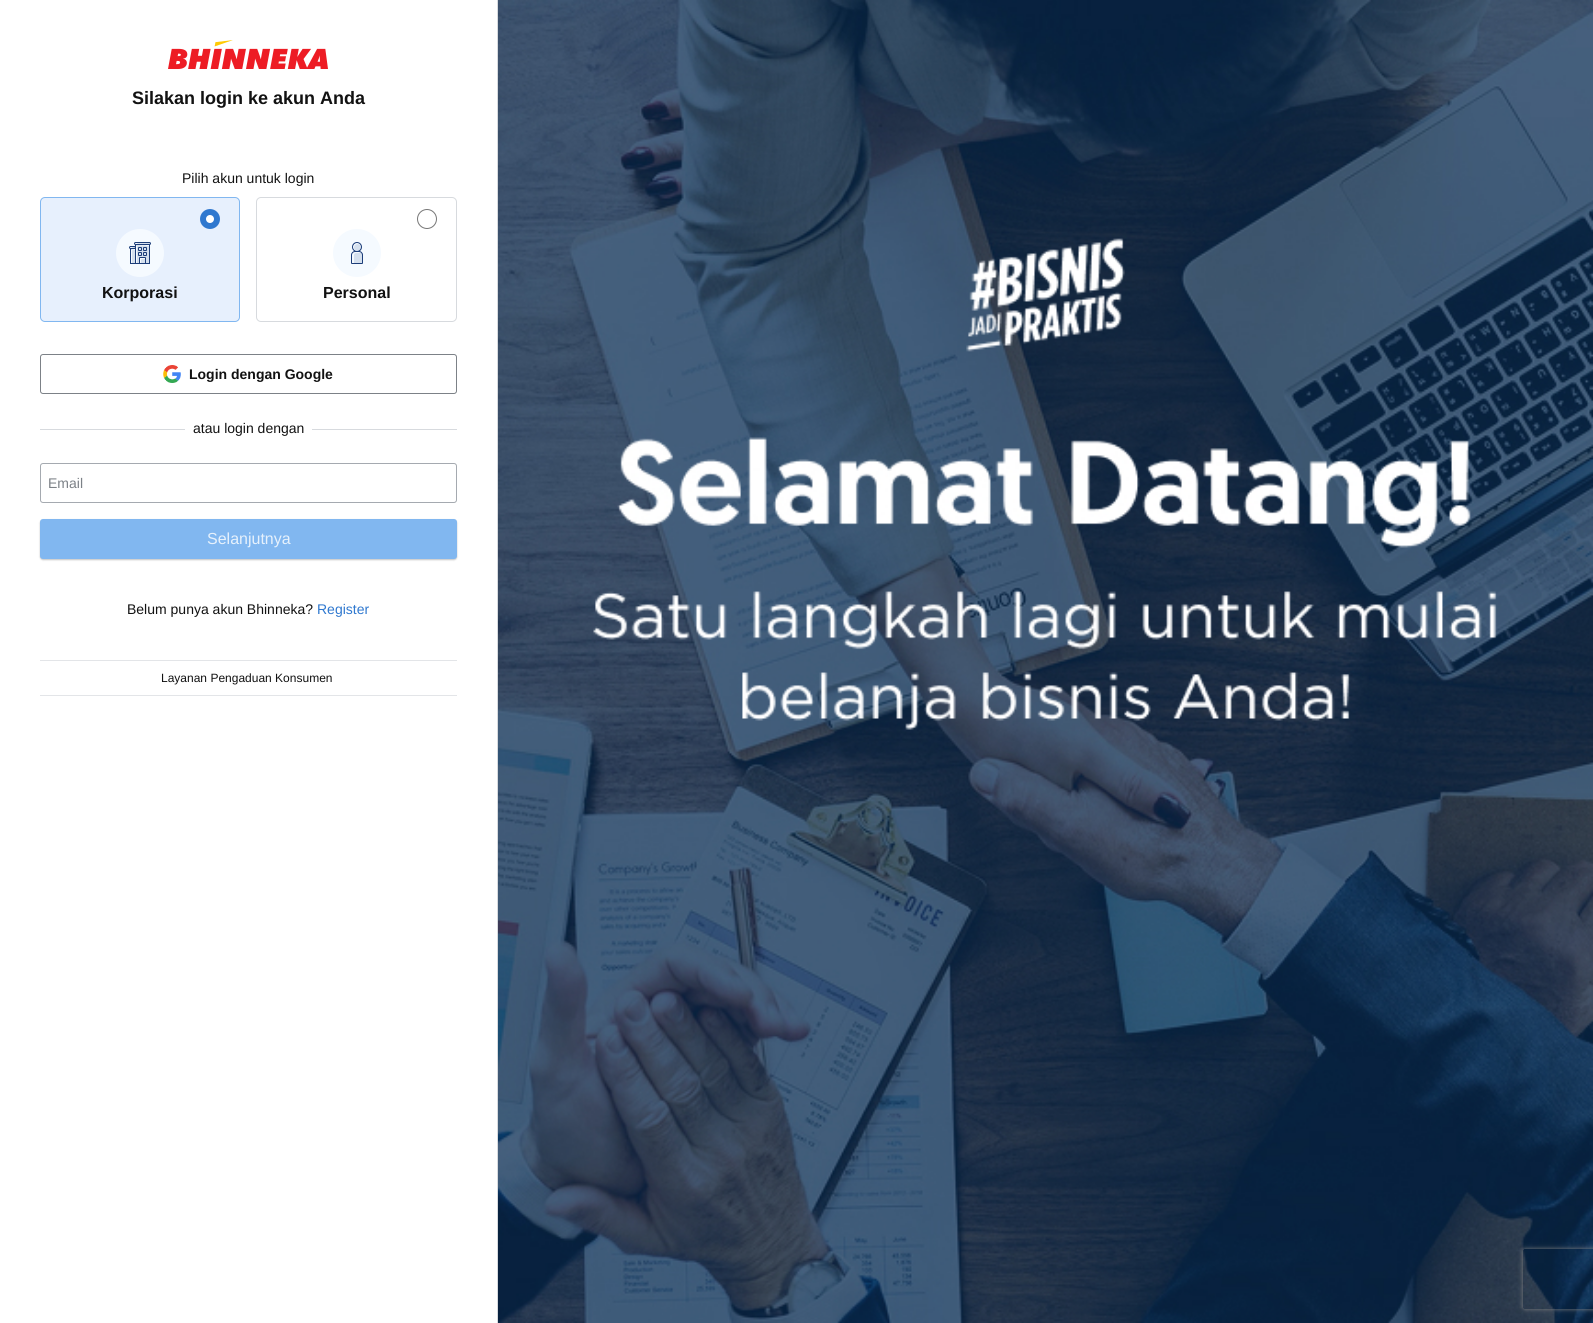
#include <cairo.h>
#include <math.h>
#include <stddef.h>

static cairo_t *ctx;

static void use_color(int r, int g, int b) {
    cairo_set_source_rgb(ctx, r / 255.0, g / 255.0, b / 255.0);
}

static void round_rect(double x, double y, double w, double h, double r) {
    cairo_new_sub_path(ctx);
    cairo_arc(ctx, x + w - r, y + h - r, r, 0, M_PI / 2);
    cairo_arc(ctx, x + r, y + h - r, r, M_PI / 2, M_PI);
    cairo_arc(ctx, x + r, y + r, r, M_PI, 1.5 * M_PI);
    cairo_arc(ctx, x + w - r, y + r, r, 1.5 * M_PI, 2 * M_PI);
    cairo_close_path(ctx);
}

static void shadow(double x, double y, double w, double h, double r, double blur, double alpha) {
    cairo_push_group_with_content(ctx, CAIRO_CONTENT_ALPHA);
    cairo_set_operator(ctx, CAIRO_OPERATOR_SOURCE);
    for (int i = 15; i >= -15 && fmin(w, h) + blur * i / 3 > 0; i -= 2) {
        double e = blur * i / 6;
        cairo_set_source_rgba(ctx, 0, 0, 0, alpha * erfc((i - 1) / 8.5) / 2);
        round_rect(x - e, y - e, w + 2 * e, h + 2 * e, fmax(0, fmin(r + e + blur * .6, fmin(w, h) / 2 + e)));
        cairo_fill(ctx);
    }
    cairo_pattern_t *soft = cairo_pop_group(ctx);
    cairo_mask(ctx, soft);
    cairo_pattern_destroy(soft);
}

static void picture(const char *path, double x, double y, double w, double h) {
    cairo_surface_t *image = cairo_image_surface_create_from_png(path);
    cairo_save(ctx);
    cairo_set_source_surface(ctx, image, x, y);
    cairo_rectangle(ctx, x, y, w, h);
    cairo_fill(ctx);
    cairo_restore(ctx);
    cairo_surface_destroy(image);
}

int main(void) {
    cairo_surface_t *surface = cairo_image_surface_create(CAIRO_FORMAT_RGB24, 1593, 1323);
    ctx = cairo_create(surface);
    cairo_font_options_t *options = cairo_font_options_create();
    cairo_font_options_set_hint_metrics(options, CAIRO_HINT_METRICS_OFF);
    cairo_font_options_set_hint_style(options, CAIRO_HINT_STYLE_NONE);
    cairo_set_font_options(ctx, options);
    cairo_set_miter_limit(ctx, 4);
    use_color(255, 255, 255);
    cairo_paint(ctx);
    use_color(215, 218, 222);
    cairo_rectangle(ctx, 497, 0, 1, 1323);
    cairo_fill(ctx);
    picture("img1.png", 168, 40, 160, 29);
    cairo_select_font_face(ctx, "Liberation Sans", CAIRO_FONT_SLANT_NORMAL, CAIRO_FONT_WEIGHT_BOLD);
    cairo_set_font_size(ctx, 18);
    use_color(18, 18, 18);
    cairo_move_to(ctx, 132, 104);
    cairo_show_text(ctx, "Silakan login ke akun Anda");
    cairo_select_font_face(ctx, "Liberation Sans", CAIRO_FONT_SLANT_NORMAL, CAIRO_FONT_WEIGHT_NORMAL);
    cairo_set_font_size(ctx, 14);
    cairo_move_to(ctx, 182, 183);
    cairo_show_text(ctx, "Pilih akun untuk login");
    use_color(231, 240, 253);
    round_rect(40.5, 197.5, 199, 124, 4.5);
    cairo_fill_preserve(ctx);
    use_color(129, 183, 240);
    cairo_set_line_width(ctx, 1);
    cairo_stroke(ctx);
    use_color(255, 255, 255);
    cairo_arc(ctx, 210, 219, 7, 0, 2 * M_PI);
    cairo_fill_preserve(ctx);
    use_color(47, 120, 207);
    cairo_set_line_width(ctx, 6);
    cairo_stroke(ctx);
    picture("img2.png", 116, 229, 48, 48);
    cairo_select_font_face(ctx, "Liberation Sans", CAIRO_FONT_SLANT_NORMAL, CAIRO_FONT_WEIGHT_BOLD);
    cairo_set_font_size(ctx, 16);
    use_color(18, 18, 18);
    cairo_move_to(ctx, 102, 298);
    cairo_show_text(ctx, "Korporasi");
    round_rect(256.5, 197.5, 200, 124, 4.5);
    use_color(215, 218, 222);
    cairo_set_line_width(ctx, 1);
    cairo_stroke(ctx);
    cairo_arc(ctx, 427, 219, 9.5, 0, 2 * M_PI);
    use_color(118, 118, 118);
    cairo_stroke(ctx);
    picture("img3.png", 333, 229, 48, 48);
    use_color(18, 18, 18);
    cairo_move_to(ctx, 323, 298);
    cairo_show_text(ctx, "Personal");
    round_rect(40.5, 354.5, 416, 39, 2.5);
    use_color(124, 129, 135);
    cairo_stroke(ctx);
    picture("img4.png", 163, 365, 18, 18);
    cairo_set_font_size(ctx, 14);
    use_color(18, 18, 18);
    cairo_move_to(ctx, 189, 379);
    cairo_show_text(ctx, "Login dengan Google");
    use_color(215, 218, 222);
    cairo_rectangle(ctx, 40, 429, 145, 1);
    cairo_fill(ctx);
    cairo_select_font_face(ctx, "Liberation Sans", CAIRO_FONT_SLANT_NORMAL, CAIRO_FONT_WEIGHT_NORMAL);
    use_color(18, 18, 18);
    cairo_move_to(ctx, 193, 433);
    cairo_show_text(ctx, "atau login dengan");
    use_color(215, 218, 222);
    cairo_rectangle(ctx, 312, 429, 145, 1);
    cairo_fill(ctx);
    round_rect(40.5, 463.5, 416, 39, 2.5);
    use_color(165, 170, 176);
    cairo_stroke(ctx);
    use_color(124, 129, 135);
    cairo_move_to(ctx, 48, 488);
    cairo_show_text(ctx, "Email");
    use_color(0, 0, 0);
    shadow(40, 520, 417, 40, 3, 1, 0.12);
    shadow(40, 520, 417, 40, 3, 0.5, 0.12);
    use_color(129, 183, 240);
    round_rect(40, 519, 417, 40, 3);
    cairo_fill(ctx);
    cairo_set_font_size(ctx, 16);
    use_color(230, 241, 252);
    cairo_move_to(ctx, 207, 544);
    cairo_show_text(ctx, "Selanjutnya");
    cairo_set_font_size(ctx, 14);
    use_color(18, 18, 18);
    cairo_move_to(ctx, 127, 614);
    cairo_show_text(ctx, "Belum punya akun Bhinneka?");
    use_color(47, 120, 207);
    cairo_move_to(ctx, 317, 614);
    cairo_show_text(ctx, "Register");
    use_color(227, 229, 232);
    cairo_rectangle(ctx, 40, 660, 417, 1);
    cairo_fill(ctx);
    cairo_rectangle(ctx, 40, 695, 417, 1);
    cairo_fill(ctx);
    cairo_set_font_size(ctx, 12);
    use_color(18, 18, 18);
    cairo_move_to(ctx, 161, 682);
    cairo_show_text(ctx, "Layanan Pengaduan Konsumen");
    picture("img5.png", 498, 0, 1095, 1323);
    cairo_save(ctx);
    cairo_set_fill_rule(ctx, CAIRO_FILL_RULE_EVEN_ODD);
    cairo_new_path(ctx);
    cairo_move_to(ctx, 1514, 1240);
    cairo_line_to(ctx, 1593, 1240);
    cairo_line_to(ctx, 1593, 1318);
    cairo_line_to(ctx, 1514, 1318);
    cairo_close_path(ctx);
    cairo_move_to(ctx, 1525, 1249);
    cairo_line_to(ctx, 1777, 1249);
    cairo_curve_to(ctx, 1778, 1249, 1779, 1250, 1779, 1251);
    cairo_line_to(ctx, 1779, 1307);
    cairo_curve_to(ctx, 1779, 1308, 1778, 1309, 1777, 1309);
    cairo_line_to(ctx, 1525, 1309);
    cairo_curve_to(ctx, 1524, 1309, 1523, 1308, 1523, 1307);
    cairo_line_to(ctx, 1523, 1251);
    cairo_curve_to(ctx, 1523, 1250, 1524, 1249, 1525, 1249);
    cairo_close_path(ctx);
    cairo_clip(ctx);
    use_color(128, 128, 128);
    shadow(1523, 1249, 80, 60, 2, 2.5, 1);
    cairo_restore(ctx);
    cairo_surface_write_to_png(surface, "result.png");
    cairo_font_options_destroy(options);
    cairo_destroy(ctx);
    cairo_surface_destroy(surface);
    return 0;
}
